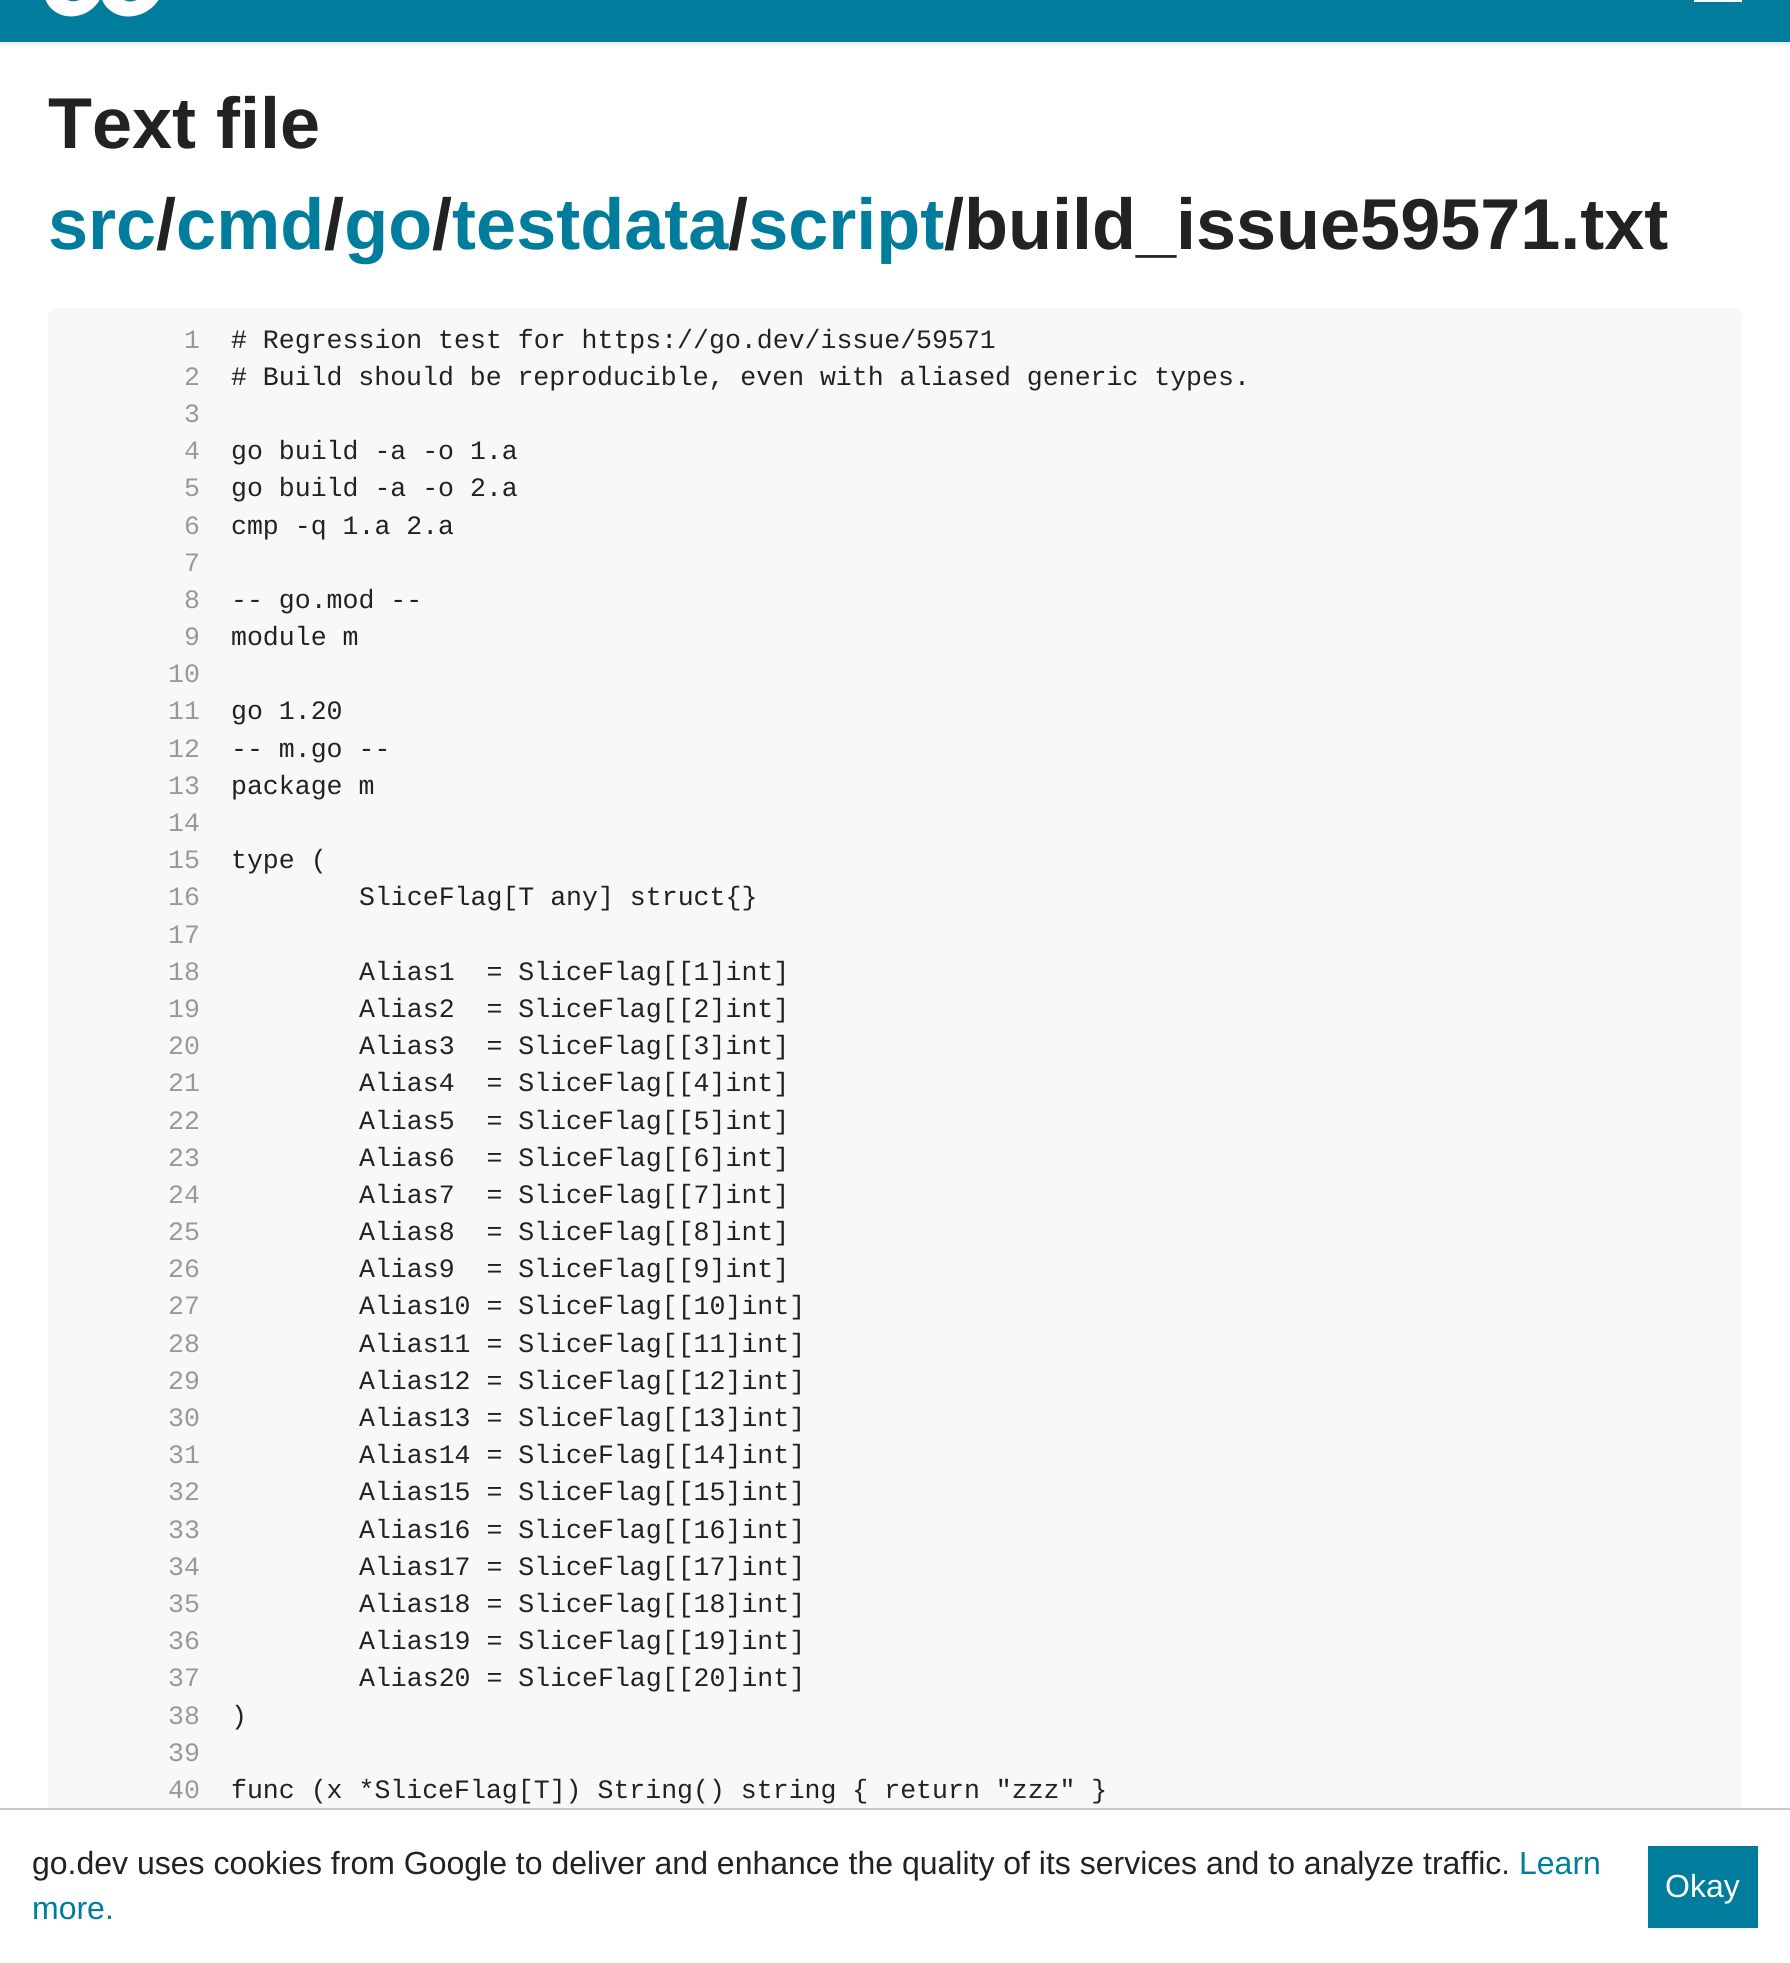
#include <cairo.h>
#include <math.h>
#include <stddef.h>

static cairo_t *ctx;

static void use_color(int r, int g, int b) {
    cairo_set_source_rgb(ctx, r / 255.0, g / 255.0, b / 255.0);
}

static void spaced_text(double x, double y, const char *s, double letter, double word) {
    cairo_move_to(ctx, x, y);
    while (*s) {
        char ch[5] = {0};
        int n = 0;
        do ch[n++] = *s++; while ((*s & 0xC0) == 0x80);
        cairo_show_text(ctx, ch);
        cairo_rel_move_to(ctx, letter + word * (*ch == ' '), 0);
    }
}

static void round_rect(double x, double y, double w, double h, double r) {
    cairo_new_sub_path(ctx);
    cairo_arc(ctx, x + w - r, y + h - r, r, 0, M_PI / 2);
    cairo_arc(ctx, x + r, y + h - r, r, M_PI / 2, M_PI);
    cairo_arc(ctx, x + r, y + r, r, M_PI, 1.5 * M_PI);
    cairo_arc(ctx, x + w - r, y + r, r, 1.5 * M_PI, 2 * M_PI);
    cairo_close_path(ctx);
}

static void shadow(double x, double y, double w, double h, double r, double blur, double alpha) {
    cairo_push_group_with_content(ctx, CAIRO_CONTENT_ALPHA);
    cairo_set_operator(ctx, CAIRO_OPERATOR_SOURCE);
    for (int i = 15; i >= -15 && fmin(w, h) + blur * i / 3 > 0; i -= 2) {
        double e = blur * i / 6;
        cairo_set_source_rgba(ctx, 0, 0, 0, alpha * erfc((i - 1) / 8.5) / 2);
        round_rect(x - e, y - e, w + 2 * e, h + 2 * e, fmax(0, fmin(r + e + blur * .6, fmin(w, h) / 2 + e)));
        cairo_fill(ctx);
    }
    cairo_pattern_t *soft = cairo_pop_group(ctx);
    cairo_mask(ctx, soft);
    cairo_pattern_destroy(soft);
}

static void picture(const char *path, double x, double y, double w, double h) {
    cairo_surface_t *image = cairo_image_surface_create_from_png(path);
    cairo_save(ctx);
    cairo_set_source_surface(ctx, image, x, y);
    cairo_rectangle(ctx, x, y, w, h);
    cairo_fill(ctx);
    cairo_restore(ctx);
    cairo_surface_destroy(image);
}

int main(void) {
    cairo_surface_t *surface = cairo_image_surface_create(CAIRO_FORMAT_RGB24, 1790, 1963);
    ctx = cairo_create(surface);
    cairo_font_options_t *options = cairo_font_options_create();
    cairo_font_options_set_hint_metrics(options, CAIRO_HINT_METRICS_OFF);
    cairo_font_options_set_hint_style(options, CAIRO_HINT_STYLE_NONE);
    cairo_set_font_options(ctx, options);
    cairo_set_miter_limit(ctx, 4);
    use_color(255, 255, 255);
    cairo_paint(ctx);
    use_color(171, 171, 171);
    shadow(0, -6, 1790, 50, 0, 2, 0.3);
    use_color(0, 125, 156);
    cairo_rectangle(ctx, 0, 0, 1790, 42);
    cairo_fill(ctx);
    picture("img1.png", 45, 0, 114, 17);
    use_color(255, 255, 255);
    cairo_new_path(ctx);
    cairo_move_to(ctx, 1694, 2);
    cairo_line_to(ctx, 1742, 2);
    cairo_line_to(ctx, 1742, -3);
    cairo_line_to(ctx, 1694, -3);
    cairo_close_path(ctx);
    cairo_move_to(ctx, 1694, -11);
    cairo_line_to(ctx, 1742, -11);
    cairo_line_to(ctx, 1742, -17);
    cairo_line_to(ctx, 1694, -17);
    cairo_close_path(ctx);
    cairo_move_to(ctx, 1694, -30);
    cairo_line_to(ctx, 1694, -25);
    cairo_line_to(ctx, 1742, -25);
    cairo_line_to(ctx, 1742, -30);
    cairo_close_path(ctx);
    cairo_fill(ctx);
    cairo_select_font_face(ctx, "Liberation Sans", CAIRO_FONT_SLANT_NORMAL, CAIRO_FONT_WEIGHT_BOLD);
    cairo_set_font_size(ctx, 72);
    use_color(32, 34, 36);
    cairo_move_to(ctx, 48, 148);
    cairo_show_text(ctx, "Text file");
    use_color(0, 125, 156);
    cairo_move_to(ctx, 48, 249);
    cairo_show_text(ctx, "src cmd go testdata script");
    use_color(32, 34, 36);
    cairo_move_to(ctx, 156, 249);
    cairo_show_text(ctx, "/");
    cairo_move_to(ctx, 324, 249);
    cairo_show_text(ctx, "/");
    cairo_move_to(ctx, 432, 249);
    cairo_show_text(ctx, "/");
    cairo_move_to(ctx, 728, 249);
    cairo_show_text(ctx, "/");
    cairo_move_to(ctx, 944, 249);
    cairo_show_text(ctx, "/build_issue59571.txt");
    use_color(248, 248, 248);
    round_rect(48, 308, 1694, 1556, 8);
    cairo_fill(ctx);
    cairo_select_font_face(ctx, "Liberation Mono", CAIRO_FONT_SLANT_NORMAL, CAIRO_FONT_WEIGHT_NORMAL);
    cairo_set_font_size(ctx, 26.55);
    use_color(153, 153, 153);
    cairo_move_to(ctx, 184, 348);
    cairo_show_text(ctx, "1");
    use_color(32, 34, 36);
    cairo_move_to(ctx, 231, 348);
    cairo_show_text(ctx, "# Regression test for https://go.dev/issue/59571");
    use_color(153, 153, 153);
    cairo_move_to(ctx, 184, 385);
    cairo_show_text(ctx, "2");
    use_color(32, 34, 36);
    spaced_text(231, 385, "# Build should be reproducible, even with aliased generic types.", 0, -0.1);
    use_color(153, 153, 153);
    cairo_move_to(ctx, 184, 422);
    cairo_show_text(ctx, "3");
    cairo_move_to(ctx, 184, 459);
    cairo_show_text(ctx, "4");
    use_color(32, 34, 36);
    cairo_move_to(ctx, 231, 459);
    cairo_show_text(ctx, "go build -a -o 1.a");
    use_color(153, 153, 153);
    cairo_move_to(ctx, 184, 496);
    cairo_show_text(ctx, "5");
    use_color(32, 34, 36);
    cairo_move_to(ctx, 231, 496);
    cairo_show_text(ctx, "go build -a -o 2.a");
    use_color(153, 153, 153);
    cairo_move_to(ctx, 184, 534);
    cairo_show_text(ctx, "6");
    use_color(32, 34, 36);
    cairo_move_to(ctx, 231, 534);
    cairo_show_text(ctx, "cmp -q 1.a 2.a");
    use_color(153, 153, 153);
    cairo_move_to(ctx, 184, 571);
    cairo_show_text(ctx, "7");
    cairo_move_to(ctx, 184, 608);
    cairo_show_text(ctx, "8");
    use_color(32, 34, 36);
    cairo_move_to(ctx, 231, 608);
    cairo_show_text(ctx, "-- go.mod --");
    use_color(153, 153, 153);
    cairo_move_to(ctx, 184, 645);
    cairo_show_text(ctx, "9");
    use_color(32, 34, 36);
    cairo_move_to(ctx, 231, 645);
    cairo_show_text(ctx, "module m");
    use_color(153, 153, 153);
    cairo_move_to(ctx, 168, 682);
    cairo_show_text(ctx, "10");
    cairo_move_to(ctx, 168, 719);
    cairo_show_text(ctx, "11");
    use_color(32, 34, 36);
    cairo_move_to(ctx, 231, 719);
    cairo_show_text(ctx, "go 1.20");
    use_color(153, 153, 153);
    cairo_move_to(ctx, 168, 757);
    cairo_show_text(ctx, "12");
    use_color(32, 34, 36);
    cairo_move_to(ctx, 231, 757);
    cairo_show_text(ctx, "-- m.go --");
    use_color(153, 153, 153);
    cairo_move_to(ctx, 168, 794);
    cairo_show_text(ctx, "13");
    use_color(32, 34, 36);
    cairo_move_to(ctx, 231, 794);
    cairo_show_text(ctx, "package m");
    use_color(153, 153, 153);
    cairo_move_to(ctx, 168, 831);
    cairo_show_text(ctx, "14");
    cairo_move_to(ctx, 168, 868);
    cairo_show_text(ctx, "15");
    use_color(32, 34, 36);
    cairo_move_to(ctx, 231, 868);
    cairo_show_text(ctx, "type (");
    use_color(153, 153, 153);
    cairo_move_to(ctx, 168, 905);
    cairo_show_text(ctx, "16");
    use_color(32, 34, 36);
    cairo_move_to(ctx, 359, 905);
    cairo_show_text(ctx, "SliceFlag[T any] struct{}");
    use_color(153, 153, 153);
    cairo_move_to(ctx, 168, 943);
    cairo_show_text(ctx, "17");
    cairo_move_to(ctx, 168, 980);
    cairo_show_text(ctx, "18");
    use_color(32, 34, 36);
    cairo_move_to(ctx, 359, 980);
    cairo_show_text(ctx, "Alias1  = SliceFlag[[1]int]");
    use_color(153, 153, 153);
    cairo_move_to(ctx, 168, 1017);
    cairo_show_text(ctx, "19");
    use_color(32, 34, 36);
    cairo_move_to(ctx, 359, 1017);
    cairo_show_text(ctx, "Alias2  = SliceFlag[[2]int]");
    use_color(153, 153, 153);
    cairo_move_to(ctx, 168, 1054);
    cairo_show_text(ctx, "20");
    use_color(32, 34, 36);
    cairo_move_to(ctx, 359, 1054);
    cairo_show_text(ctx, "Alias3  = SliceFlag[[3]int]");
    use_color(153, 153, 153);
    cairo_move_to(ctx, 168, 1091);
    cairo_show_text(ctx, "21");
    use_color(32, 34, 36);
    cairo_move_to(ctx, 359, 1091);
    cairo_show_text(ctx, "Alias4  = SliceFlag[[4]int]");
    use_color(153, 153, 153);
    cairo_move_to(ctx, 168, 1129);
    cairo_show_text(ctx, "22");
    use_color(32, 34, 36);
    cairo_move_to(ctx, 359, 1129);
    cairo_show_text(ctx, "Alias5  = SliceFlag[[5]int]");
    use_color(153, 153, 153);
    cairo_move_to(ctx, 168, 1166);
    cairo_show_text(ctx, "23");
    use_color(32, 34, 36);
    cairo_move_to(ctx, 359, 1166);
    cairo_show_text(ctx, "Alias6  = SliceFlag[[6]int]");
    use_color(153, 153, 153);
    cairo_move_to(ctx, 168, 1203);
    cairo_show_text(ctx, "24");
    use_color(32, 34, 36);
    cairo_move_to(ctx, 359, 1203);
    cairo_show_text(ctx, "Alias7  = SliceFlag[[7]int]");
    use_color(153, 153, 153);
    cairo_move_to(ctx, 168, 1240);
    cairo_show_text(ctx, "25");
    use_color(32, 34, 36);
    cairo_move_to(ctx, 359, 1240);
    cairo_show_text(ctx, "Alias8  = SliceFlag[[8]int]");
    use_color(153, 153, 153);
    cairo_move_to(ctx, 168, 1277);
    cairo_show_text(ctx, "26");
    use_color(32, 34, 36);
    cairo_move_to(ctx, 359, 1277);
    cairo_show_text(ctx, "Alias9  = SliceFlag[[9]int]");
    use_color(153, 153, 153);
    cairo_move_to(ctx, 168, 1314);
    cairo_show_text(ctx, "27");
    use_color(32, 34, 36);
    cairo_move_to(ctx, 359, 1314);
    cairo_show_text(ctx, "Alias10 = SliceFlag[[10]int]");
    use_color(153, 153, 153);
    cairo_move_to(ctx, 168, 1352);
    cairo_show_text(ctx, "28");
    use_color(32, 34, 36);
    cairo_move_to(ctx, 359, 1352);
    cairo_show_text(ctx, "Alias11 = SliceFlag[[11]int]");
    use_color(153, 153, 153);
    cairo_move_to(ctx, 168, 1389);
    cairo_show_text(ctx, "29");
    use_color(32, 34, 36);
    cairo_move_to(ctx, 359, 1389);
    cairo_show_text(ctx, "Alias12 = SliceFlag[[12]int]");
    use_color(153, 153, 153);
    cairo_move_to(ctx, 168, 1426);
    cairo_show_text(ctx, "30");
    use_color(32, 34, 36);
    cairo_move_to(ctx, 359, 1426);
    cairo_show_text(ctx, "Alias13 = SliceFlag[[13]int]");
    use_color(153, 153, 153);
    cairo_move_to(ctx, 168, 1463);
    cairo_show_text(ctx, "31");
    use_color(32, 34, 36);
    cairo_move_to(ctx, 359, 1463);
    cairo_show_text(ctx, "Alias14 = SliceFlag[[14]int]");
    use_color(153, 153, 153);
    cairo_move_to(ctx, 168, 1500);
    cairo_show_text(ctx, "32");
    use_color(32, 34, 36);
    cairo_move_to(ctx, 359, 1500);
    cairo_show_text(ctx, "Alias15 = SliceFlag[[15]int]");
    use_color(153, 153, 153);
    cairo_move_to(ctx, 168, 1538);
    cairo_show_text(ctx, "33");
    use_color(32, 34, 36);
    cairo_move_to(ctx, 359, 1538);
    cairo_show_text(ctx, "Alias16 = SliceFlag[[16]int]");
    use_color(153, 153, 153);
    cairo_move_to(ctx, 168, 1575);
    cairo_show_text(ctx, "34");
    use_color(32, 34, 36);
    cairo_move_to(ctx, 359, 1575);
    cairo_show_text(ctx, "Alias17 = SliceFlag[[17]int]");
    use_color(153, 153, 153);
    cairo_move_to(ctx, 168, 1612);
    cairo_show_text(ctx, "35");
    use_color(32, 34, 36);
    cairo_move_to(ctx, 359, 1612);
    cairo_show_text(ctx, "Alias18 = SliceFlag[[18]int]");
    use_color(153, 153, 153);
    cairo_move_to(ctx, 168, 1649);
    cairo_show_text(ctx, "36");
    use_color(32, 34, 36);
    cairo_move_to(ctx, 359, 1649);
    cairo_show_text(ctx, "Alias19 = SliceFlag[[19]int]");
    use_color(153, 153, 153);
    cairo_move_to(ctx, 168, 1686);
    cairo_show_text(ctx, "37");
    use_color(32, 34, 36);
    cairo_move_to(ctx, 359, 1686);
    cairo_show_text(ctx, "Alias20 = SliceFlag[[20]int]");
    use_color(153, 153, 153);
    cairo_move_to(ctx, 168, 1724);
    cairo_show_text(ctx, "38");
    use_color(32, 34, 36);
    cairo_move_to(ctx, 231, 1724);
    cairo_show_text(ctx, ")");
    use_color(153, 153, 153);
    cairo_move_to(ctx, 168, 1761);
    cairo_show_text(ctx, "39");
    cairo_move_to(ctx, 168, 1798);
    cairo_show_text(ctx, "40");
    use_color(32, 34, 36);
    cairo_move_to(ctx, 231, 1798);
    cairo_show_text(ctx, "func (x *SliceFlag[T]) String() string { return \"zzz\" }");
    use_color(255, 255, 255);
    cairo_rectangle(ctx, 48, 1810, 1694, 54);
    cairo_fill(ctx);
    use_color(198, 200, 202);
    cairo_rectangle(ctx, 0, 1808, 1790, 2);
    cairo_fill(ctx);
    cairo_select_font_face(ctx, "Liberation Sans", CAIRO_FONT_SLANT_NORMAL, CAIRO_FONT_WEIGHT_NORMAL);
    cairo_set_font_size(ctx, 32);
    use_color(32, 34, 36);
    cairo_move_to(ctx, 32, 1874);
    cairo_show_text(ctx, "go.dev uses cookies from Google to deliver and enhance the quality of its services and to analyze traffic.");
    use_color(0, 125, 156);
    cairo_move_to(ctx, 1519, 1874);
    cairo_show_text(ctx, "Learn");
    cairo_move_to(ctx, 32, 1919);
    cairo_show_text(ctx, "more.");
    cairo_rectangle(ctx, 1648, 1846, 110, 82);
    cairo_fill(ctx);
    use_color(255, 255, 255);
    cairo_move_to(ctx, 1665, 1897);
    cairo_show_text(ctx, "Okay");
    cairo_surface_write_to_png(surface, "result.png");
    cairo_font_options_destroy(options);
    cairo_destroy(ctx);
    cairo_surface_destroy(surface);
    return 0;
}
